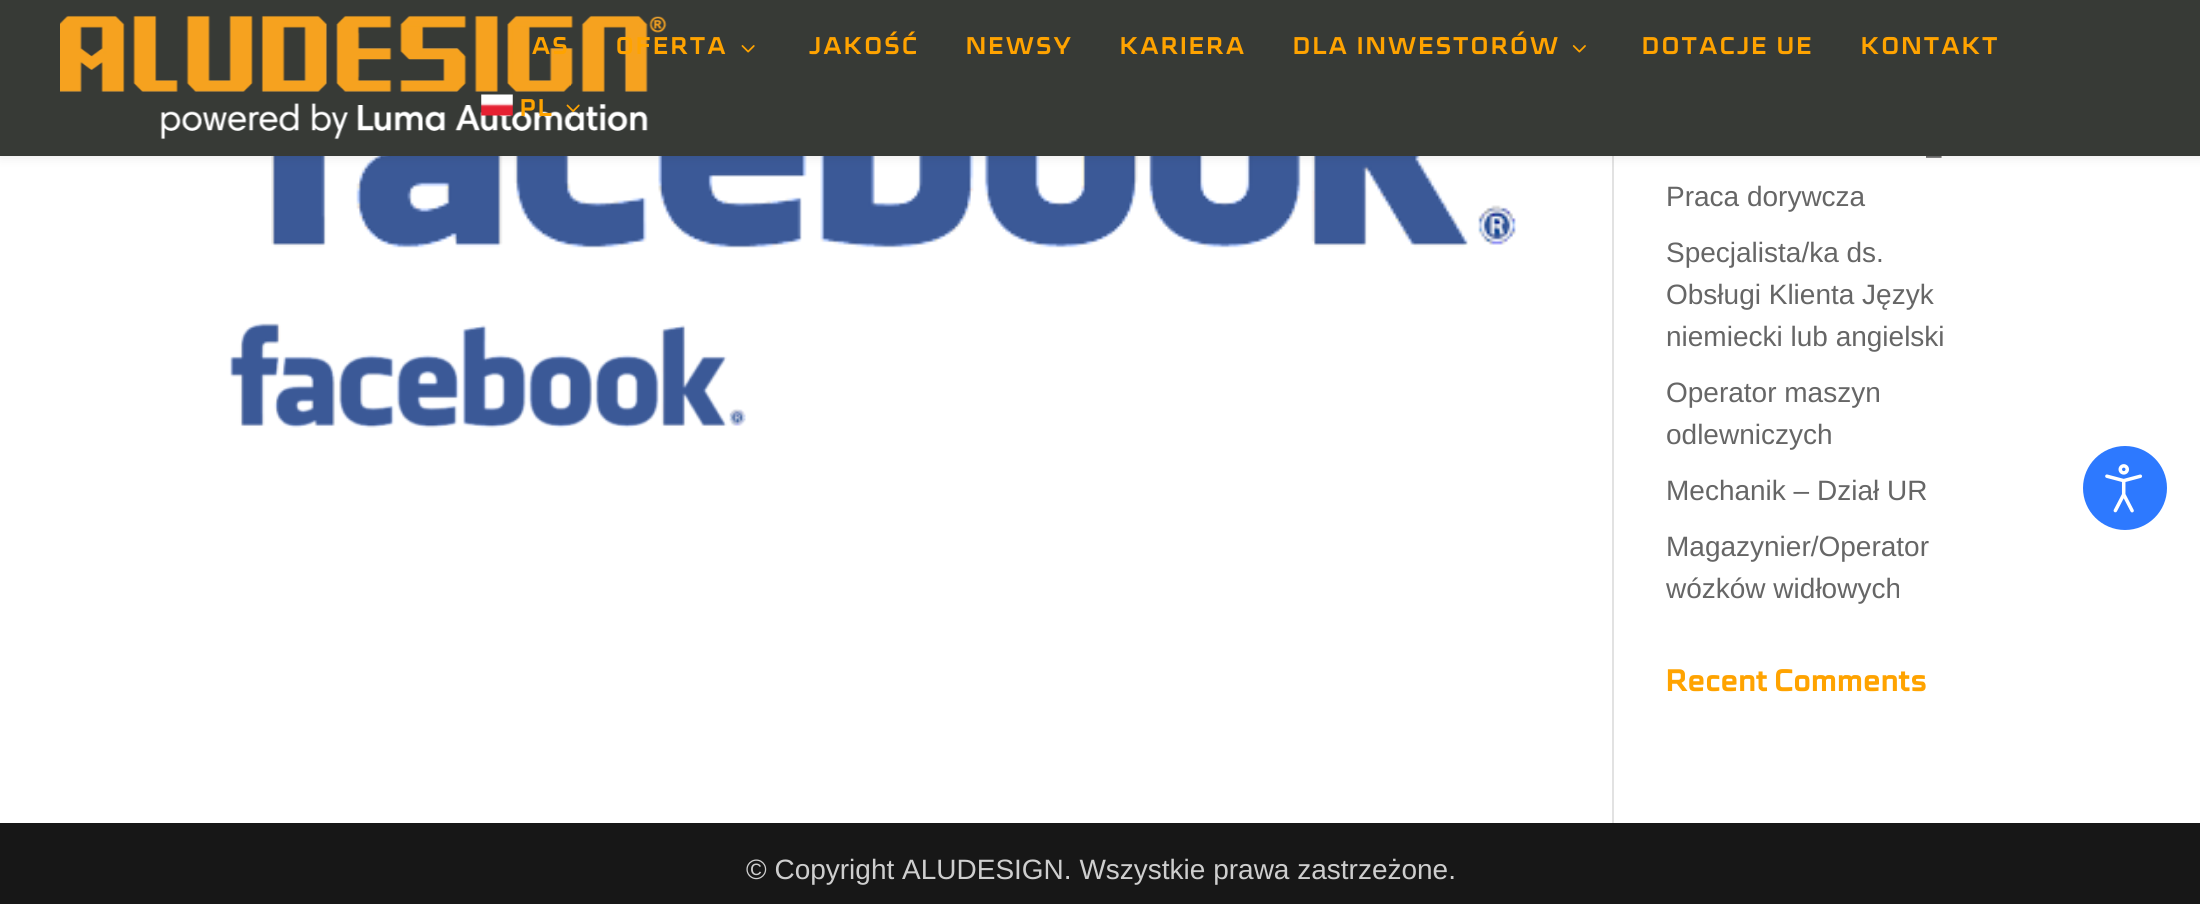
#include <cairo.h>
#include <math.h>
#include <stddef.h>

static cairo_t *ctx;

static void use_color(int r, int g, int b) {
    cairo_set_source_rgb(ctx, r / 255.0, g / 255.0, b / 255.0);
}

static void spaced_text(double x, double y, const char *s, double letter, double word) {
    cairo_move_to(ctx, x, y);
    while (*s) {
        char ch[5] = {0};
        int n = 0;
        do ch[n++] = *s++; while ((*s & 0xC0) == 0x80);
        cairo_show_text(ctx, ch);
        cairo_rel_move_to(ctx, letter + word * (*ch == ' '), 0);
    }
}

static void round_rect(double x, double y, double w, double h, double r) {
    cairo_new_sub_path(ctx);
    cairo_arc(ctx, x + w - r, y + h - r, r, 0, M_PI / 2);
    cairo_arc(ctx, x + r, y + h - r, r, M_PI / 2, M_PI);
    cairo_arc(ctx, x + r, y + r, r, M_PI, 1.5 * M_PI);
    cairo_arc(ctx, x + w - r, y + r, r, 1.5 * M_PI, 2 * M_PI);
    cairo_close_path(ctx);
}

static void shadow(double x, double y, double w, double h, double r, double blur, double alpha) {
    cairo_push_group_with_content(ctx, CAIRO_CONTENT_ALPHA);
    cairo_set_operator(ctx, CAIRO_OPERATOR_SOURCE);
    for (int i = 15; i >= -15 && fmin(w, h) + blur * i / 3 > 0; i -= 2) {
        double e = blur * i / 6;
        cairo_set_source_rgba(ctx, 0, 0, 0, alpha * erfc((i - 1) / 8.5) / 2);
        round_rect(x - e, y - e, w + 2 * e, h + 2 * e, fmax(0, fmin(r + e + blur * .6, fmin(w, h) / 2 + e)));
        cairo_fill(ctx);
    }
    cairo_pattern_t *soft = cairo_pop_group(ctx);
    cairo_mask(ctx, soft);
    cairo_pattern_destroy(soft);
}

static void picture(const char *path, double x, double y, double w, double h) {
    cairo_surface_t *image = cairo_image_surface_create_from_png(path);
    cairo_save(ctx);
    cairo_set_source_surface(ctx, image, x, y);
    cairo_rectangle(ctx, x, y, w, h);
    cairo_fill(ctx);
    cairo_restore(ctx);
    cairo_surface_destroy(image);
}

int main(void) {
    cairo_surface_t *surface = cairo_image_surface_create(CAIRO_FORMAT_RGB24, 2200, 904);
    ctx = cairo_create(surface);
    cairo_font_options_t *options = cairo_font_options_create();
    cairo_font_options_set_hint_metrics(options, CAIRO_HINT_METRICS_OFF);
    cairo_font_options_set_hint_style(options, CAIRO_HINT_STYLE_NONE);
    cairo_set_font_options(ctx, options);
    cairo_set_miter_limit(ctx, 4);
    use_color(255, 255, 255);
    cairo_paint(ctx);
    use_color(226, 226, 226);
    cairo_rectangle(ctx, 1612, 156, 2, 667);
    cairo_fill(ctx);
    picture("img6.png", 271, 156, 1245, 92);
    use_color(0, 0, 0);
    shadow(0, 0, 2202, 156, 0, 6, 0.1);
    cairo_select_font_face(ctx, "Liberation Sans", CAIRO_FONT_SLANT_NORMAL, CAIRO_FONT_WEIGHT_NORMAL);
    cairo_set_font_size(ctx, 28);
    use_color(102, 102, 102);
    cairo_move_to(ctx, 1926, 164);
    cairo_show_text(ctx, "–");
    use_color(55, 58, 54);
    cairo_rectangle(ctx, 0, 0, 2200, 156);
    cairo_fill(ctx);
    picture("img1.png", 60, 15, 607, 125);
    cairo_select_font_face(ctx, "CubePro", CAIRO_FONT_SLANT_NORMAL, CAIRO_FONT_WEIGHT_NORMAL);
    cairo_set_font_size(ctx, 24.5);
    use_color(255, 163, 0);
    spaced_text(532, 54, "AS", 2.6, 0);
    spaced_text(616, 54, "OFERTA", 2.6, 0);
    picture("img2.png", 741, 45, 14, 8);
    spaced_text(809, 54, "JAKOŚĆ", 2.6, 0);
    spaced_text(966, 54, "NEWSY", 2.6, 0);
    spaced_text(1120, 54, "KARIERA", 2.6, 0);
    spaced_text(1293, 54, "DLA INWESTORÓW", 2.6, 0);
    picture("img3.png", 1572, 45, 14, 8);
    spaced_text(1642, 54, "DOTACJE UE", 2.6, 0);
    spaced_text(1861, 54, "KONTAKT", 2.6, 0);
    picture("img4.png", 481, 94, 32, 22);
    spaced_text(520, 116, "PL", 2.6, 0);
    picture("img5.png", 566, 104, 14, 8);
    picture("img7.png", 229, 323, 517, 105);
    cairo_select_font_face(ctx, "Liberation Sans", CAIRO_FONT_SLANT_NORMAL, CAIRO_FONT_WEIGHT_NORMAL);
    cairo_set_font_size(ctx, 28);
    use_color(102, 102, 102);
    cairo_move_to(ctx, 1666, 206);
    cairo_show_text(ctx, "Praca dorywcza");
    cairo_move_to(ctx, 1666, 262);
    cairo_show_text(ctx, "Specjalista/ka ds.");
    cairo_move_to(ctx, 1666, 304);
    cairo_show_text(ctx, "Obsługi Klienta Język");
    cairo_move_to(ctx, 1666, 346);
    cairo_show_text(ctx, "niemiecki lub angielski");
    cairo_move_to(ctx, 1666, 402);
    cairo_show_text(ctx, "Operator maszyn");
    cairo_move_to(ctx, 1666, 444);
    cairo_show_text(ctx, "odlewniczych");
    cairo_move_to(ctx, 1666, 500);
    cairo_show_text(ctx, "Mechanik – Dział UR");
    cairo_move_to(ctx, 1666, 556);
    cairo_show_text(ctx, "Magazynier/Operator");
    cairo_move_to(ctx, 1666, 598);
    cairo_show_text(ctx, "wózków widłowych");
    cairo_select_font_face(ctx, "CubePro", CAIRO_FONT_SLANT_NORMAL, CAIRO_FONT_WEIGHT_NORMAL);
    cairo_set_font_size(ctx, 31.5);
    use_color(255, 163, 0);
    cairo_move_to(ctx, 1666, 691);
    cairo_show_text(ctx, "Recent Comments");
    use_color(23, 23, 23);
    cairo_rectangle(ctx, 0, 823, 2200, 81);
    cairo_fill(ctx);
    cairo_select_font_face(ctx, "Liberation Sans", CAIRO_FONT_SLANT_NORMAL, CAIRO_FONT_WEIGHT_NORMAL);
    cairo_set_font_size(ctx, 28);
    use_color(206, 206, 206);
    cairo_move_to(ctx, 746, 879);
    cairo_show_text(ctx, "© Copyright ALUDESIGN. Wszystkie prawa zastrzeżone.");
    use_color(45, 121, 255);
    cairo_new_path(ctx);
    cairo_arc(ctx, 2125, 488, 42, 0, 2 * M_PI);
    cairo_fill(ctx);
    picture("img8.png", 2105, 464, 38, 49);
    cairo_surface_write_to_png(surface, "result.png");
    cairo_font_options_destroy(options);
    cairo_destroy(ctx);
    cairo_surface_destroy(surface);
    return 0;
}
